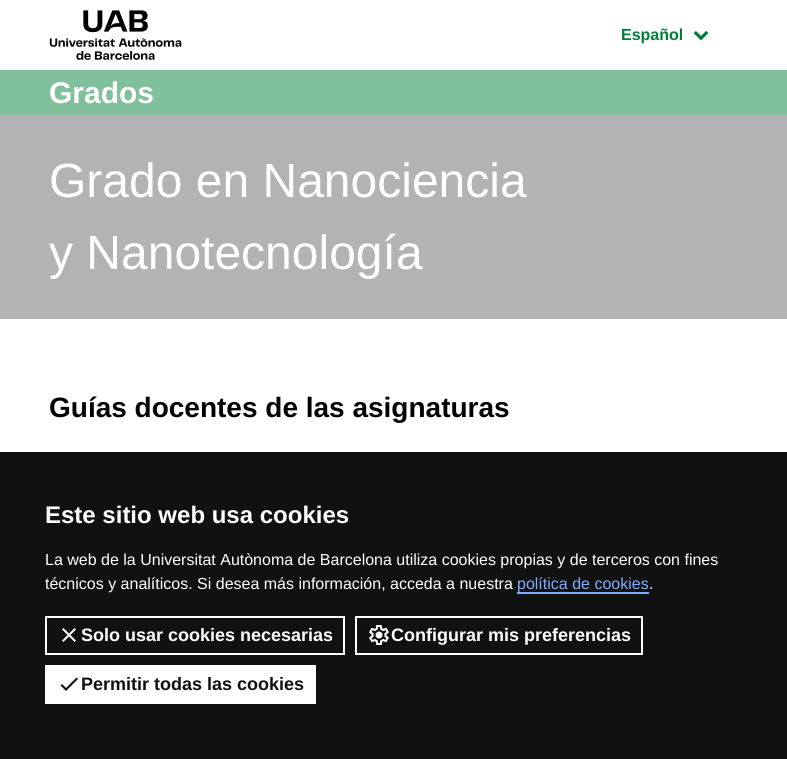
#include <cairo.h>
#include <math.h>
#include <stddef.h>

static cairo_t *ctx;

static void use_color(int r, int g, int b) {
    cairo_set_source_rgb(ctx, r / 255.0, g / 255.0, b / 255.0);
}

static void picture(const char *path, double x, double y, double w, double h) {
    cairo_surface_t *image = cairo_image_surface_create_from_png(path);
    cairo_save(ctx);
    cairo_set_source_surface(ctx, image, x, y);
    cairo_rectangle(ctx, x, y, w, h);
    cairo_fill(ctx);
    cairo_restore(ctx);
    cairo_surface_destroy(image);
}

int main(void) {
    cairo_surface_t *surface = cairo_image_surface_create(CAIRO_FORMAT_RGB24, 787, 759);
    ctx = cairo_create(surface);
    cairo_font_options_t *options = cairo_font_options_create();
    cairo_font_options_set_hint_metrics(options, CAIRO_HINT_METRICS_OFF);
    cairo_font_options_set_hint_style(options, CAIRO_HINT_STYLE_NONE);
    cairo_set_font_options(ctx, options);
    cairo_set_miter_limit(ctx, 4);
    use_color(255, 255, 255);
    cairo_paint(ctx);
    picture("img1.png", 49, 10, 133, 50);
    cairo_select_font_face(ctx, "Liberation Sans", CAIRO_FONT_SLANT_NORMAL, CAIRO_FONT_WEIGHT_BOLD);
    cairo_set_font_size(ctx, 16);
    use_color(0, 128, 55);
    cairo_move_to(ctx, 621, 40);
    cairo_show_text(ctx, "Español");
    picture("img2.png", 693, 31, 16, 10);
    use_color(128, 192, 155);
    cairo_rectangle(ctx, 0, 70, 787, 45);
    cairo_fill(ctx);
    cairo_set_font_size(ctx, 30);
    use_color(255, 255, 255);
    cairo_move_to(ctx, 49, 103);
    cairo_show_text(ctx, "Grados");
    use_color(179, 179, 179);
    cairo_rectangle(ctx, 0, 115, 787, 204);
    cairo_fill(ctx);
    cairo_select_font_face(ctx, "Liberation Sans", CAIRO_FONT_SLANT_NORMAL, CAIRO_FONT_WEIGHT_NORMAL);
    cairo_set_font_size(ctx, 48);
    use_color(255, 255, 255);
    cairo_move_to(ctx, 49, 197);
    cairo_show_text(ctx, "Grado en Nanociencia");
    cairo_move_to(ctx, 49, 269);
    cairo_show_text(ctx, "y Nanotecnología");
    cairo_select_font_face(ctx, "Liberation Sans", CAIRO_FONT_SLANT_NORMAL, CAIRO_FONT_WEIGHT_BOLD);
    cairo_set_font_size(ctx, 28);
    use_color(0, 0, 0);
    cairo_move_to(ctx, 49, 417);
    cairo_show_text(ctx, "Guías docentes de las asignaturas");
    use_color(17, 17, 17);
    cairo_rectangle(ctx, 0, 452, 787, 307);
    cairo_fill(ctx);
    cairo_set_font_size(ctx, 24);
    use_color(255, 255, 255);
    cairo_move_to(ctx, 45, 523);
    cairo_show_text(ctx, "Este sitio web usa cookies");
    cairo_select_font_face(ctx, "Liberation Sans", CAIRO_FONT_SLANT_NORMAL, CAIRO_FONT_WEIGHT_NORMAL);
    cairo_set_font_size(ctx, 16);
    cairo_move_to(ctx, 45, 565);
    cairo_show_text(ctx, "La web de la Universitat Autònoma de Barcelona utiliza cookies propias y de terceros con fines");
    cairo_move_to(ctx, 45, 589);
    cairo_show_text(ctx, "técnicos y analíticos. Si desea más información, acceda a nuestra");
    use_color(128, 172, 255);
    cairo_rectangle(ctx, 517, 592, 132, 2);
    cairo_fill(ctx);
    cairo_move_to(ctx, 517, 589);
    cairo_show_text(ctx, "política de cookies");
    use_color(255, 255, 255);
    cairo_move_to(ctx, 649, 589);
    cairo_show_text(ctx, ".");
    cairo_rectangle(ctx, 46, 617, 298, 37);
    cairo_stroke(ctx);
    picture("img3.png", 62, 628, 14, 14);
    cairo_select_font_face(ctx, "Liberation Sans", CAIRO_FONT_SLANT_NORMAL, CAIRO_FONT_WEIGHT_BOLD);
    cairo_set_font_size(ctx, 18);
    cairo_move_to(ctx, 81, 641);
    cairo_show_text(ctx, "Solo usar cookies necesarias");
    cairo_rectangle(ctx, 356, 617, 286, 37);
    cairo_stroke(ctx);
    picture("img4.png", 369, 625, 20, 20);
    cairo_move_to(ctx, 391, 641);
    cairo_show_text(ctx, "Configurar mis preferencias");
    cairo_rectangle(ctx, 45, 665, 271, 39);
    cairo_fill(ctx);
    use_color(17, 17, 17);
    cairo_new_path(ctx);
    cairo_move_to(ctx, 66, 688);
    cairo_line_to(ctx, 62, 684);
    cairo_line_to(ctx, 60.5, 685.5);
    cairo_line_to(ctx, 66, 691);
    cairo_line_to(ctx, 78, 679);
    cairo_line_to(ctx, 76.5, 677.5);
    cairo_close_path(ctx);
    cairo_fill(ctx);
    cairo_move_to(ctx, 81, 690);
    cairo_show_text(ctx, "Permitir todas las cookies");
    cairo_surface_write_to_png(surface, "result.png");
    cairo_font_options_destroy(options);
    cairo_destroy(ctx);
    cairo_surface_destroy(surface);
    return 0;
}
